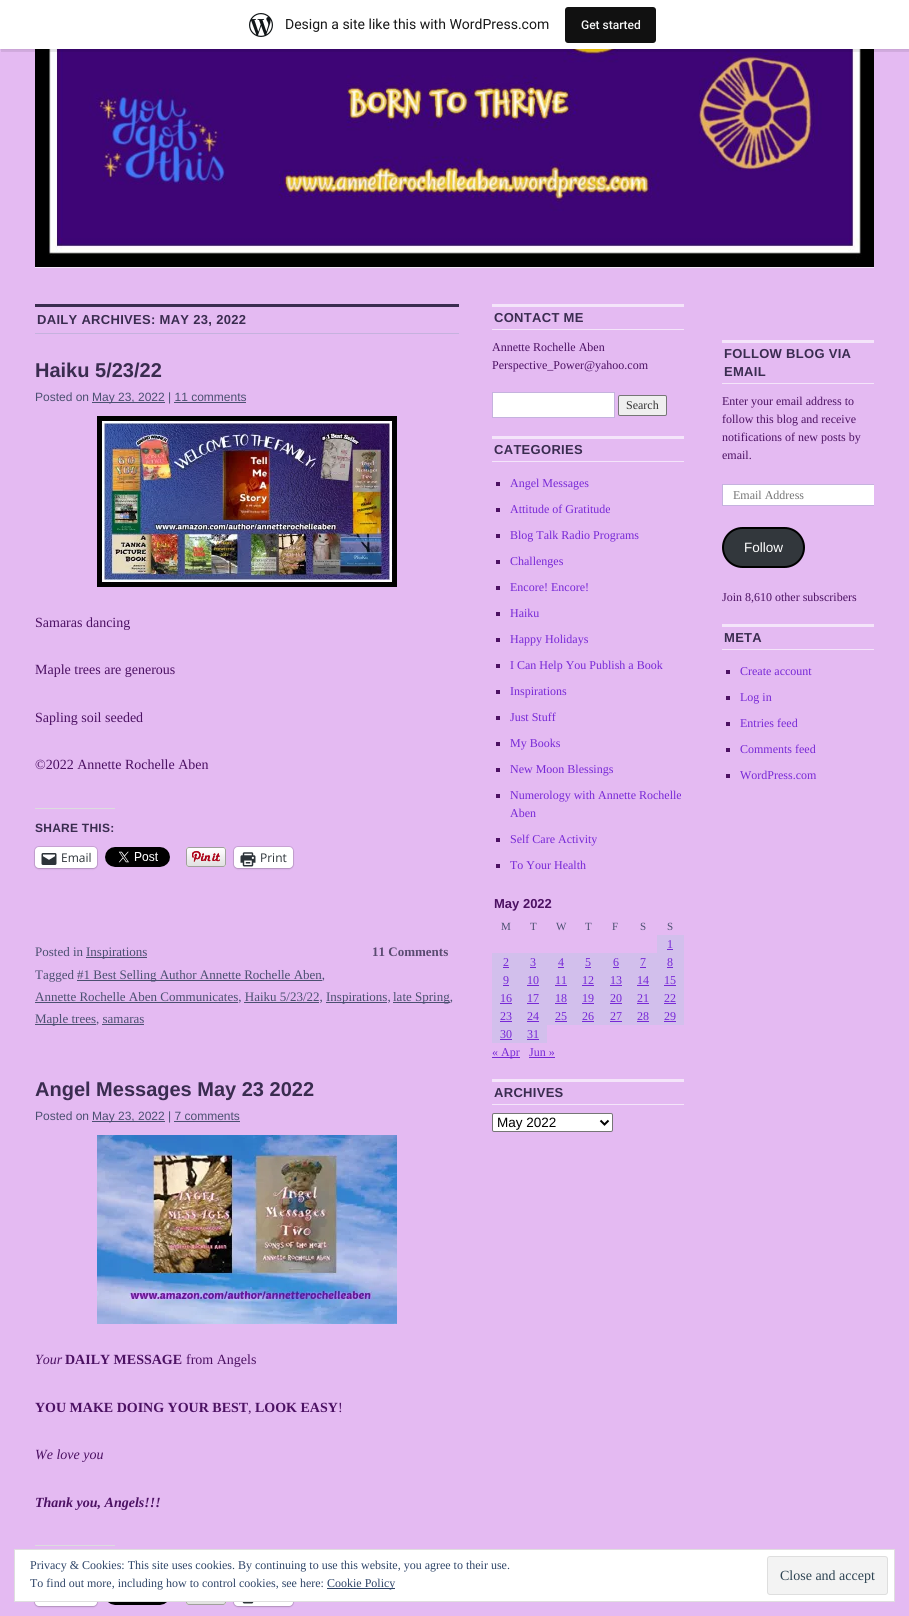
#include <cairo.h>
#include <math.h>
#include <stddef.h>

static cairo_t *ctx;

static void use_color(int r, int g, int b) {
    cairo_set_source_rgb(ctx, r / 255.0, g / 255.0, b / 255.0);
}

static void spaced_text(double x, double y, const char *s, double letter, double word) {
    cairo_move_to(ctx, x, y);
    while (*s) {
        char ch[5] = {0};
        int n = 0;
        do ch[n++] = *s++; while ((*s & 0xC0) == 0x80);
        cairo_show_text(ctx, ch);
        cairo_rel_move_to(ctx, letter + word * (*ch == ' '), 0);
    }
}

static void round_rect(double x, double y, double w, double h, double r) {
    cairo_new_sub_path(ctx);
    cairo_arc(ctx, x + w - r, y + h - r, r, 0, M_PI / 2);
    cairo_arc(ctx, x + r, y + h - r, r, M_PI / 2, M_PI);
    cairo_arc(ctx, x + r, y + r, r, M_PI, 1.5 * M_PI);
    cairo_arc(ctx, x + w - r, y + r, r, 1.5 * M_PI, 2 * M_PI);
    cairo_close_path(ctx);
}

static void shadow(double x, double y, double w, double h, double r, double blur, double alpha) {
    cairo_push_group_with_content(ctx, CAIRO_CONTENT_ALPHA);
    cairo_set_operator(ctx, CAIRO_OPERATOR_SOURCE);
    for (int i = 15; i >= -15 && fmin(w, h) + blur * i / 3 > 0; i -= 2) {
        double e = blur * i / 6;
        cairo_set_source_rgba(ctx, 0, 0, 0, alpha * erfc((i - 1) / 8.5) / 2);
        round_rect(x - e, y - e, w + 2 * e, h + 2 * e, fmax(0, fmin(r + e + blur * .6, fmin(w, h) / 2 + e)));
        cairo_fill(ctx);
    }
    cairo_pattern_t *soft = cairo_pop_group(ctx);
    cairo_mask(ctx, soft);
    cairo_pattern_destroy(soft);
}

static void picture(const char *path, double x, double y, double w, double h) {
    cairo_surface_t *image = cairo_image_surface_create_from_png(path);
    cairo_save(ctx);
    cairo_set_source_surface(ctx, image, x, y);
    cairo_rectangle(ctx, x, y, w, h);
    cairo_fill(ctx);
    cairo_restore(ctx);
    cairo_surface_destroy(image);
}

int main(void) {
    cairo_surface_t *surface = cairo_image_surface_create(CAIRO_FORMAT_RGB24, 909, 1616);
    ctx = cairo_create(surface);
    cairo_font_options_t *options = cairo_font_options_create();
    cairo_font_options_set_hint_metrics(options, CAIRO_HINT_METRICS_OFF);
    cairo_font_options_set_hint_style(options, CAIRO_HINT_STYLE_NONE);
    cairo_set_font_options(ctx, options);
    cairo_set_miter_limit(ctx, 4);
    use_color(228, 186, 242);
    cairo_paint(ctx);
    picture("img2.png", 35, 49, 839, 218);
    use_color(0, 0, 0);
    shadow(0, 1, 909, 49, 0, 1, 0.05);
    cairo_set_source_rgba(ctx, 0, 0, 0, 0.08);
    cairo_new_path(ctx);
    cairo_move_to(ctx, 1, 49);
    cairo_line_to(ctx, 1, 52);
    cairo_line_to(ctx, 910, 52);
    cairo_line_to(ctx, 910, 3);
    cairo_line_to(ctx, 909, 3);
    cairo_line_to(ctx, 909, 49);
    cairo_close_path(ctx);
    cairo_fill(ctx);
    use_color(255, 255, 255);
    cairo_rectangle(ctx, 0, 0, 909, 49);
    cairo_fill(ctx);
    picture("img1.png", 249, 13, 24, 24);
    cairo_select_font_face(ctx, "Roboto", CAIRO_FONT_SLANT_NORMAL, CAIRO_FONT_WEIGHT_NORMAL);
    cairo_set_font_size(ctx, 14);
    use_color(23, 23, 23);
    cairo_move_to(ctx, 285, 29);
    cairo_show_text(ctx, "Design a site like this with WordPress.com");
    use_color(17, 17, 17);
    round_rect(565, 7, 91, 36, 3);
    cairo_fill(ctx);
    cairo_select_font_face(ctx, "Roboto Medium", CAIRO_FONT_SLANT_NORMAL, CAIRO_FONT_WEIGHT_NORMAL);
    cairo_set_font_size(ctx, 12);
    use_color(246, 247, 247);
    cairo_move_to(ctx, 581, 29);
    cairo_show_text(ctx, "Get started");
    use_color(244, 229, 250);
    cairo_rectangle(ctx, 35, 267, 839, 1);
    cairo_fill(ctx);
    use_color(58, 44, 80);
    cairo_rectangle(ctx, 35, 304, 424, 3);
    cairo_fill(ctx);
    use_color(197, 178, 222);
    cairo_rectangle(ctx, 35, 333, 424, 1);
    cairo_fill(ctx);
    cairo_select_font_face(ctx, "Liberation Sans", CAIRO_FONT_SLANT_NORMAL, CAIRO_FONT_WEIGHT_BOLD);
    cairo_set_font_size(ctx, 13);
    use_color(58, 44, 80);
    spaced_text(37, 324, "DAILY ARCHIVES: MAY 23, 2022", 0.3, 0);
    cairo_set_font_size(ctx, 20);
    cairo_move_to(ctx, 35, 377);
    cairo_show_text(ctx, "Haiku 5/23/22");
    cairo_select_font_face(ctx, "Liberation Sans", CAIRO_FONT_SLANT_NORMAL, CAIRO_FONT_WEIGHT_NORMAL);
    cairo_set_font_size(ctx, 12);
    use_color(75, 80, 113);
    cairo_move_to(ctx, 35, 401);
    cairo_show_text(ctx, "Posted on");
    cairo_rectangle(ctx, 92, 402, 73, 1);
    cairo_fill(ctx);
    cairo_move_to(ctx, 92, 401);
    cairo_show_text(ctx, "May 23, 2022 | 11 comments");
    cairo_rectangle(ctx, 174, 402, 72, 1);
    cairo_fill(ctx);
    picture("img3.png", 97, 416, 300, 171);
    cairo_select_font_face(ctx, "Liberation Serif", CAIRO_FONT_SLANT_NORMAL, CAIRO_FONT_WEIGHT_NORMAL);
    cairo_set_font_size(ctx, 14);
    use_color(76, 17, 99);
    cairo_move_to(ctx, 35, 627);
    cairo_show_text(ctx, "Samaras dancing");
    cairo_move_to(ctx, 35, 674);
    cairo_show_text(ctx, "Maple trees are generous");
    cairo_move_to(ctx, 35, 722);
    cairo_show_text(ctx, "Sapling soil seeded");
    cairo_move_to(ctx, 35, 769);
    cairo_show_text(ctx, "©2022 Annette Rochelle Aben");
    use_color(220, 220, 222);
    cairo_rectangle(ctx, 35, 808, 80, 1);
    cairo_fill(ctx);
    cairo_select_font_face(ctx, "Liberation Sans", CAIRO_FONT_SLANT_NORMAL, CAIRO_FONT_WEIGHT_BOLD);
    cairo_set_font_size(ctx, 12);
    use_color(58, 44, 80);
    spaced_text(35, 832, "SHARE THIS:", 0.25, 0);
    round_rect(34.5, 846.5, 63, 22, 4.5);
    use_color(201, 164, 213);
    cairo_set_line_width(ctx, 1);
    cairo_stroke(ctx);
    use_color(0, 0, 0);
    shadow(35, 848, 62, 21, 4, 1, 0.12);
    use_color(255, 255, 255);
    round_rect(35, 847, 62, 21, 4);
    cairo_fill(ctx);
    picture("img4.png", 41, 853, 16, 12);
    cairo_select_font_face(ctx, "Open Sans", CAIRO_FONT_SLANT_NORMAL, CAIRO_FONT_WEIGHT_NORMAL);
    use_color(44, 51, 56);
    cairo_move_to(ctx, 61, 862);
    cairo_show_text(ctx, "Email");
    picture("img5.png", 105, 847, 65, 20);
    picture("img6.png", 186, 847, 40, 20);
    round_rect(233.5, 846.5, 60, 22, 4.5);
    use_color(201, 164, 213);
    cairo_stroke(ctx);
    use_color(0, 0, 0);
    shadow(234, 848, 59, 21, 4, 1, 0.12);
    use_color(255, 255, 255);
    round_rect(234, 847, 59, 21, 4);
    cairo_fill(ctx);
    picture("img7.png", 240, 852, 16, 15);
    use_color(44, 51, 56);
    cairo_move_to(ctx, 260, 862);
    cairo_show_text(ctx, "Print");
    cairo_select_font_face(ctx, "Liberation Serif", CAIRO_FONT_SLANT_NORMAL, CAIRO_FONT_WEIGHT_NORMAL);
    cairo_set_font_size(ctx, 13);
    use_color(75, 80, 113);
    cairo_move_to(ctx, 35, 956);
    cairo_show_text(ctx, "Posted in");
    cairo_rectangle(ctx, 86, 957, 61, 1);
    cairo_fill(ctx);
    cairo_move_to(ctx, 86, 956);
    cairo_show_text(ctx, "Inspirations");
    cairo_select_font_face(ctx, "Liberation Serif", CAIRO_FONT_SLANT_NORMAL, CAIRO_FONT_WEIGHT_BOLD);
    use_color(90, 75, 113);
    cairo_move_to(ctx, 372, 956);
    cairo_show_text(ctx, "11 Comments");
    cairo_select_font_face(ctx, "Liberation Serif", CAIRO_FONT_SLANT_NORMAL, CAIRO_FONT_WEIGHT_NORMAL);
    use_color(75, 80, 113);
    cairo_move_to(ctx, 35, 979);
    cairo_show_text(ctx, "Tagged");
    cairo_rectangle(ctx, 77, 980, 245, 1);
    cairo_fill(ctx);
    cairo_move_to(ctx, 77, 979);
    cairo_show_text(ctx, "#1 Best Selling Author Annette Rochelle Aben,");
    cairo_rectangle(ctx, 35, 1002, 203, 1);
    cairo_fill(ctx);
    cairo_move_to(ctx, 35, 1001);
    cairo_show_text(ctx, "Annette Rochelle Aben Communicates, Haiku 5/23/22,");
    cairo_rectangle(ctx, 326, 1002, 61, 1);
    cairo_fill(ctx);
    cairo_move_to(ctx, 326, 1001);
    cairo_show_text(ctx, "Inspirations,");
    cairo_rectangle(ctx, 393, 1002, 57, 1);
    cairo_fill(ctx);
    cairo_move_to(ctx, 393, 1001);
    cairo_show_text(ctx, "late Spring,");
    cairo_rectangle(ctx, 244, 1002, 75, 1);
    cairo_fill(ctx);
    cairo_rectangle(ctx, 35, 1024, 61, 1);
    cairo_fill(ctx);
    cairo_move_to(ctx, 35, 1023);
    cairo_show_text(ctx, "Maple trees, samaras");
    cairo_rectangle(ctx, 102, 1024, 42, 1);
    cairo_fill(ctx);
    cairo_select_font_face(ctx, "Liberation Sans", CAIRO_FONT_SLANT_NORMAL, CAIRO_FONT_WEIGHT_BOLD);
    cairo_set_font_size(ctx, 20);
    use_color(58, 44, 80);
    cairo_move_to(ctx, 35, 1096);
    cairo_show_text(ctx, "Angel Messages May 23 2022");
    cairo_select_font_face(ctx, "Liberation Sans", CAIRO_FONT_SLANT_NORMAL, CAIRO_FONT_WEIGHT_NORMAL);
    cairo_set_font_size(ctx, 12);
    use_color(75, 80, 113);
    cairo_move_to(ctx, 35, 1120);
    cairo_show_text(ctx, "Posted on");
    cairo_rectangle(ctx, 92, 1121, 73, 1);
    cairo_fill(ctx);
    cairo_move_to(ctx, 92, 1120);
    cairo_show_text(ctx, "May 23, 2022 | 7 comments");
    cairo_rectangle(ctx, 174, 1121, 66, 1);
    cairo_fill(ctx);
    picture("img8.png", 97, 1135, 300, 189);
    cairo_select_font_face(ctx, "Liberation Serif", CAIRO_FONT_SLANT_ITALIC, CAIRO_FONT_WEIGHT_NORMAL);
    cairo_set_font_size(ctx, 14);
    use_color(76, 17, 99);
    cairo_move_to(ctx, 35, 1364);
    cairo_show_text(ctx, "Your");
    cairo_select_font_face(ctx, "Liberation Serif", CAIRO_FONT_SLANT_NORMAL, CAIRO_FONT_WEIGHT_BOLD);
    cairo_move_to(ctx, 65, 1364);
    cairo_show_text(ctx, "DAILY MESSAGE");
    cairo_select_font_face(ctx, "Liberation Serif", CAIRO_FONT_SLANT_NORMAL, CAIRO_FONT_WEIGHT_NORMAL);
    cairo_move_to(ctx, 186, 1364);
    cairo_show_text(ctx, "from Angels");
    cairo_select_font_face(ctx, "Liberation Serif", CAIRO_FONT_SLANT_NORMAL, CAIRO_FONT_WEIGHT_BOLD);
    cairo_move_to(ctx, 35, 1412);
    cairo_show_text(ctx, "YOU MAKE DOING YOUR BEST");
    cairo_select_font_face(ctx, "Liberation Serif", CAIRO_FONT_SLANT_NORMAL, CAIRO_FONT_WEIGHT_NORMAL);
    cairo_move_to(ctx, 248, 1412);
    cairo_show_text(ctx, ",");
    cairo_select_font_face(ctx, "Liberation Serif", CAIRO_FONT_SLANT_NORMAL, CAIRO_FONT_WEIGHT_BOLD);
    cairo_move_to(ctx, 255, 1412);
    cairo_show_text(ctx, "LOOK EASY");
    cairo_select_font_face(ctx, "Liberation Serif", CAIRO_FONT_SLANT_NORMAL, CAIRO_FONT_WEIGHT_NORMAL);
    cairo_move_to(ctx, 338, 1412);
    cairo_show_text(ctx, "!");
    cairo_select_font_face(ctx, "Liberation Serif", CAIRO_FONT_SLANT_ITALIC, CAIRO_FONT_WEIGHT_NORMAL);
    cairo_move_to(ctx, 35, 1459);
    cairo_show_text(ctx, "We love you");
    cairo_select_font_face(ctx, "Liberation Serif", CAIRO_FONT_SLANT_ITALIC, CAIRO_FONT_WEIGHT_BOLD);
    cairo_move_to(ctx, 35, 1507);
    cairo_show_text(ctx, "Thank you, Angels!!!");
    use_color(220, 220, 222);
    cairo_rectangle(ctx, 35, 1545, 80, 1);
    cairo_fill(ctx);
    round_rect(34.5, 1584.5, 63, 22, 4.5);
    use_color(201, 164, 213);
    cairo_stroke(ctx);
    use_color(0, 0, 0);
    shadow(35, 1586, 62, 21, 4, 1, 0.12);
    use_color(255, 255, 255);
    round_rect(35, 1585, 62, 21, 4);
    cairo_fill(ctx);
    picture("img9.png", 108, 1602, 59, 3);
    picture("img10.png", 186, 1602, 40, 3);
    round_rect(233.5, 1584.5, 60, 22, 4.5);
    use_color(201, 164, 213);
    cairo_stroke(ctx);
    use_color(0, 0, 0);
    shadow(234, 1586, 59, 21, 4, 1, 0.12);
    use_color(255, 255, 255);
    round_rect(234, 1585, 59, 21, 4);
    cairo_fill(ctx);
    picture("img11.png", 242, 1602, 12, 2);
    use_color(244, 229, 250);
    cairo_rectangle(ctx, 492, 304, 192, 3);
    cairo_fill(ctx);
    cairo_rectangle(ctx, 492, 329, 192, 1);
    cairo_fill(ctx);
    cairo_select_font_face(ctx, "Liberation Sans", CAIRO_FONT_SLANT_NORMAL, CAIRO_FONT_WEIGHT_BOLD);
    cairo_set_font_size(ctx, 13);
    use_color(58, 44, 80);
    spaced_text(494, 322, "CONTACT ME", 0.3, 0);
    cairo_select_font_face(ctx, "Liberation Serif", CAIRO_FONT_SLANT_NORMAL, CAIRO_FONT_WEIGHT_NORMAL);
    cairo_set_font_size(ctx, 12);
    use_color(76, 17, 99);
    cairo_move_to(ctx, 492, 351);
    cairo_show_text(ctx, "Annette Rochelle Aben");
    cairo_move_to(ctx, 492, 369);
    cairo_show_text(ctx, "Perspective_Power@yahoo.com");
    use_color(255, 255, 255);
    cairo_rectangle(ctx, 492.5, 392.5, 122, 25);
    cairo_fill_preserve(ctx);
    use_color(197, 178, 222);
    cairo_stroke(ctx);
    use_color(239, 239, 239);
    round_rect(618.5, 395.5, 48, 20, 1.5);
    cairo_fill_preserve(ctx);
    use_color(118, 118, 118);
    cairo_stroke(ctx);
    use_color(51, 51, 51);
    cairo_move_to(ctx, 626, 409);
    cairo_show_text(ctx, "Search");
    use_color(244, 229, 250);
    cairo_rectangle(ctx, 492, 436, 192, 3);
    cairo_fill(ctx);
    cairo_rectangle(ctx, 492, 461, 192, 1);
    cairo_fill(ctx);
    cairo_select_font_face(ctx, "Liberation Sans", CAIRO_FONT_SLANT_NORMAL, CAIRO_FONT_WEIGHT_BOLD);
    cairo_set_font_size(ctx, 13);
    use_color(58, 44, 80);
    spaced_text(494, 454, "CATEGORIES", 0.3, 0);
    use_color(76, 17, 99);
    cairo_rectangle(ctx, 496, 482, 4, 4);
    cairo_fill(ctx);
    cairo_select_font_face(ctx, "Liberation Serif", CAIRO_FONT_SLANT_NORMAL, CAIRO_FONT_WEIGHT_NORMAL);
    cairo_set_font_size(ctx, 12);
    use_color(119, 40, 214);
    cairo_move_to(ctx, 510, 487);
    cairo_show_text(ctx, "Angel Messages");
    use_color(76, 17, 99);
    cairo_rectangle(ctx, 496, 508, 4, 4);
    cairo_fill(ctx);
    use_color(119, 40, 214);
    cairo_move_to(ctx, 510, 513);
    cairo_show_text(ctx, "Attitude of Gratitude");
    use_color(76, 17, 99);
    cairo_rectangle(ctx, 496, 534, 4, 4);
    cairo_fill(ctx);
    use_color(119, 40, 214);
    cairo_move_to(ctx, 510, 539);
    cairo_show_text(ctx, "Blog Talk Radio Programs");
    use_color(76, 17, 99);
    cairo_rectangle(ctx, 496, 560, 4, 4);
    cairo_fill(ctx);
    use_color(119, 40, 214);
    cairo_move_to(ctx, 510, 565);
    cairo_show_text(ctx, "Challenges");
    use_color(76, 17, 99);
    cairo_rectangle(ctx, 496, 586, 4, 4);
    cairo_fill(ctx);
    use_color(119, 40, 214);
    cairo_move_to(ctx, 510, 591);
    cairo_show_text(ctx, "Encore! Encore!");
    use_color(76, 17, 99);
    cairo_rectangle(ctx, 496, 612, 4, 4);
    cairo_fill(ctx);
    use_color(119, 40, 214);
    cairo_move_to(ctx, 510, 617);
    cairo_show_text(ctx, "Haiku");
    use_color(76, 17, 99);
    cairo_rectangle(ctx, 496, 638, 4, 4);
    cairo_fill(ctx);
    use_color(119, 40, 214);
    cairo_move_to(ctx, 510, 643);
    cairo_show_text(ctx, "Happy Holidays");
    use_color(76, 17, 99);
    cairo_rectangle(ctx, 496, 664, 4, 4);
    cairo_fill(ctx);
    use_color(119, 40, 214);
    cairo_move_to(ctx, 510, 669);
    cairo_show_text(ctx, "I Can Help You Publish a Book");
    use_color(76, 17, 99);
    cairo_rectangle(ctx, 496, 690, 4, 4);
    cairo_fill(ctx);
    use_color(119, 40, 214);
    cairo_move_to(ctx, 510, 695);
    cairo_show_text(ctx, "Inspirations");
    use_color(76, 17, 99);
    cairo_rectangle(ctx, 496, 716, 4, 4);
    cairo_fill(ctx);
    use_color(119, 40, 214);
    cairo_move_to(ctx, 510, 721);
    cairo_show_text(ctx, "Just Stuff");
    use_color(76, 17, 99);
    cairo_rectangle(ctx, 496, 742, 4, 4);
    cairo_fill(ctx);
    use_color(119, 40, 214);
    cairo_move_to(ctx, 510, 747);
    cairo_show_text(ctx, "My Books");
    use_color(76, 17, 99);
    cairo_rectangle(ctx, 496, 768, 4, 4);
    cairo_fill(ctx);
    use_color(119, 40, 214);
    cairo_move_to(ctx, 510, 773);
    cairo_show_text(ctx, "New Moon Blessings");
    use_color(76, 17, 99);
    cairo_rectangle(ctx, 496, 794, 4, 4);
    cairo_fill(ctx);
    use_color(119, 40, 214);
    cairo_move_to(ctx, 510, 799);
    cairo_show_text(ctx, "Numerology with Annette Rochelle");
    cairo_move_to(ctx, 510, 817);
    cairo_show_text(ctx, "Aben");
    use_color(76, 17, 99);
    cairo_rectangle(ctx, 496, 838, 4, 4);
    cairo_fill(ctx);
    use_color(119, 40, 214);
    cairo_move_to(ctx, 510, 843);
    cairo_show_text(ctx, "Self Care Activity");
    use_color(76, 17, 99);
    cairo_rectangle(ctx, 496, 864, 4, 4);
    cairo_fill(ctx);
    use_color(119, 40, 214);
    cairo_move_to(ctx, 510, 869);
    cairo_show_text(ctx, "To Your Health");
    cairo_select_font_face(ctx, "Liberation Sans", CAIRO_FONT_SLANT_NORMAL, CAIRO_FONT_WEIGHT_BOLD);
    cairo_set_font_size(ctx, 13);
    use_color(76, 17, 99);
    cairo_move_to(ctx, 494, 908);
    cairo_show_text(ctx, "May 2022");
    cairo_select_font_face(ctx, "Liberation Serif", CAIRO_FONT_SLANT_NORMAL, CAIRO_FONT_WEIGHT_NORMAL);
    cairo_set_font_size(ctx, 11);
    use_color(75, 80, 113);
    cairo_move_to(ctx, 501, 930);
    cairo_show_text(ctx, "M");
    cairo_move_to(ctx, 530, 930);
    cairo_show_text(ctx, "T");
    cairo_move_to(ctx, 556, 930);
    cairo_show_text(ctx, "W");
    cairo_move_to(ctx, 585, 930);
    cairo_show_text(ctx, "T");
    cairo_move_to(ctx, 612, 930);
    cairo_show_text(ctx, "F");
    cairo_move_to(ctx, 640, 930);
    cairo_show_text(ctx, "S");
    cairo_move_to(ctx, 667, 930);
    cairo_show_text(ctx, "S");
    use_color(210, 191, 236);
    cairo_rectangle(ctx, 657, 935, 27, 18);
    cairo_fill(ctx);
    cairo_set_font_size(ctx, 12);
    use_color(119, 40, 214);
    cairo_move_to(ctx, 667, 948);
    cairo_show_text(ctx, "1");
    cairo_rectangle(ctx, 667, 949, 6, 1);
    cairo_fill(ctx);
    use_color(210, 191, 236);
    cairo_rectangle(ctx, 492, 953, 192, 18);
    cairo_fill(ctx);
    use_color(119, 40, 214);
    cairo_move_to(ctx, 503, 966);
    cairo_show_text(ctx, "2");
    cairo_rectangle(ctx, 503, 967, 6, 1);
    cairo_fill(ctx);
    cairo_move_to(ctx, 530, 966);
    cairo_show_text(ctx, "3");
    cairo_rectangle(ctx, 530, 967, 6, 1);
    cairo_fill(ctx);
    cairo_move_to(ctx, 558, 966);
    cairo_show_text(ctx, "4");
    cairo_rectangle(ctx, 558, 967, 6, 1);
    cairo_fill(ctx);
    cairo_move_to(ctx, 585, 966);
    cairo_show_text(ctx, "5");
    cairo_rectangle(ctx, 585, 967, 6, 1);
    cairo_fill(ctx);
    cairo_move_to(ctx, 613, 966);
    cairo_show_text(ctx, "6");
    cairo_rectangle(ctx, 613, 967, 6, 1);
    cairo_fill(ctx);
    cairo_move_to(ctx, 640, 966);
    cairo_show_text(ctx, "7");
    cairo_rectangle(ctx, 640, 967, 6, 1);
    cairo_fill(ctx);
    cairo_move_to(ctx, 667, 966);
    cairo_show_text(ctx, "8");
    cairo_rectangle(ctx, 667, 967, 6, 1);
    cairo_fill(ctx);
    use_color(210, 191, 236);
    cairo_rectangle(ctx, 492, 971, 192, 18);
    cairo_fill(ctx);
    use_color(119, 40, 214);
    cairo_move_to(ctx, 503, 984);
    cairo_show_text(ctx, "9");
    cairo_rectangle(ctx, 503, 985, 6, 1);
    cairo_fill(ctx);
    cairo_move_to(ctx, 527, 984);
    cairo_show_text(ctx, "10");
    cairo_rectangle(ctx, 527, 985, 12, 1);
    cairo_fill(ctx);
    cairo_move_to(ctx, 555, 984);
    cairo_show_text(ctx, "11");
    cairo_rectangle(ctx, 555, 985, 12, 1);
    cairo_fill(ctx);
    cairo_move_to(ctx, 582, 984);
    cairo_show_text(ctx, "12");
    cairo_rectangle(ctx, 582, 985, 12, 1);
    cairo_fill(ctx);
    cairo_move_to(ctx, 610, 984);
    cairo_show_text(ctx, "13");
    cairo_rectangle(ctx, 610, 985, 12, 1);
    cairo_fill(ctx);
    cairo_move_to(ctx, 637, 984);
    cairo_show_text(ctx, "14");
    cairo_rectangle(ctx, 637, 985, 12, 1);
    cairo_fill(ctx);
    cairo_move_to(ctx, 664, 984);
    cairo_show_text(ctx, "15");
    cairo_rectangle(ctx, 664, 985, 12, 1);
    cairo_fill(ctx);
    use_color(210, 191, 236);
    cairo_rectangle(ctx, 492, 989, 192, 18);
    cairo_fill(ctx);
    use_color(119, 40, 214);
    cairo_move_to(ctx, 500, 1002);
    cairo_show_text(ctx, "16");
    cairo_rectangle(ctx, 500, 1003, 12, 1);
    cairo_fill(ctx);
    cairo_move_to(ctx, 527, 1002);
    cairo_show_text(ctx, "17");
    cairo_rectangle(ctx, 527, 1003, 12, 1);
    cairo_fill(ctx);
    cairo_move_to(ctx, 555, 1002);
    cairo_show_text(ctx, "18");
    cairo_rectangle(ctx, 555, 1003, 12, 1);
    cairo_fill(ctx);
    cairo_move_to(ctx, 582, 1002);
    cairo_show_text(ctx, "19");
    cairo_rectangle(ctx, 582, 1003, 12, 1);
    cairo_fill(ctx);
    cairo_move_to(ctx, 610, 1002);
    cairo_show_text(ctx, "20");
    cairo_rectangle(ctx, 610, 1003, 12, 1);
    cairo_fill(ctx);
    cairo_move_to(ctx, 637, 1002);
    cairo_show_text(ctx, "21");
    cairo_rectangle(ctx, 637, 1003, 12, 1);
    cairo_fill(ctx);
    cairo_move_to(ctx, 664, 1002);
    cairo_show_text(ctx, "22");
    cairo_rectangle(ctx, 664, 1003, 12, 1);
    cairo_fill(ctx);
    use_color(210, 191, 236);
    cairo_rectangle(ctx, 492, 1007, 192, 18);
    cairo_fill(ctx);
    use_color(119, 40, 214);
    cairo_move_to(ctx, 500, 1020);
    cairo_show_text(ctx, "23");
    cairo_rectangle(ctx, 500, 1021, 12, 1);
    cairo_fill(ctx);
    cairo_move_to(ctx, 527, 1020);
    cairo_show_text(ctx, "24");
    cairo_rectangle(ctx, 527, 1021, 12, 1);
    cairo_fill(ctx);
    cairo_move_to(ctx, 555, 1020);
    cairo_show_text(ctx, "25");
    cairo_rectangle(ctx, 555, 1021, 12, 1);
    cairo_fill(ctx);
    cairo_move_to(ctx, 582, 1020);
    cairo_show_text(ctx, "26");
    cairo_rectangle(ctx, 582, 1021, 12, 1);
    cairo_fill(ctx);
    cairo_move_to(ctx, 610, 1020);
    cairo_show_text(ctx, "27");
    cairo_rectangle(ctx, 610, 1021, 12, 1);
    cairo_fill(ctx);
    cairo_move_to(ctx, 637, 1020);
    cairo_show_text(ctx, "28");
    cairo_rectangle(ctx, 637, 1021, 12, 1);
    cairo_fill(ctx);
    cairo_move_to(ctx, 664, 1020);
    cairo_show_text(ctx, "29");
    cairo_rectangle(ctx, 664, 1021, 12, 1);
    cairo_fill(ctx);
    use_color(210, 191, 236);
    cairo_rectangle(ctx, 492, 1025, 55, 18);
    cairo_fill(ctx);
    use_color(119, 40, 214);
    cairo_move_to(ctx, 500, 1038);
    cairo_show_text(ctx, "30");
    cairo_rectangle(ctx, 500, 1039, 12, 1);
    cairo_fill(ctx);
    cairo_move_to(ctx, 527, 1038);
    cairo_show_text(ctx, "31");
    cairo_rectangle(ctx, 527, 1039, 12, 1);
    cairo_fill(ctx);
    cairo_rectangle(ctx, 492, 1057, 28, 1);
    cairo_fill(ctx);
    cairo_move_to(ctx, 492, 1056);
    cairo_show_text(ctx, "« Apr");
    cairo_move_to(ctx, 529, 1056);
    cairo_show_text(ctx, "Jun »");
    cairo_rectangle(ctx, 529, 1057, 26, 1);
    cairo_fill(ctx);
    use_color(244, 229, 250);
    cairo_rectangle(ctx, 492, 1079, 192, 3);
    cairo_fill(ctx);
    cairo_rectangle(ctx, 492, 1104, 192, 1);
    cairo_fill(ctx);
    cairo_select_font_face(ctx, "Liberation Sans", CAIRO_FONT_SLANT_NORMAL, CAIRO_FONT_WEIGHT_BOLD);
    cairo_set_font_size(ctx, 13);
    use_color(58, 44, 80);
    spaced_text(494, 1097, "ARCHIVES", 0.3, 0);
    use_color(255, 255, 255);
    round_rect(492.5, 1113.5, 120, 18, 1.5);
    cairo_fill_preserve(ctx);
    use_color(118, 118, 118);
    cairo_stroke(ctx);
    cairo_new_path(ctx);
    cairo_move_to(ctx, 600.5, 1120.5);
    cairo_line_to(ctx, 604.5, 1124.5);
    cairo_line_to(ctx, 608.5, 1120.5);
    use_color(0, 0, 0);
    cairo_set_line_width(ctx, 2);
    cairo_stroke(ctx);
    cairo_select_font_face(ctx, "Liberation Sans", CAIRO_FONT_SLANT_NORMAL, CAIRO_FONT_WEIGHT_NORMAL);
    cairo_set_font_size(ctx, 13.5);
    cairo_move_to(ctx, 497, 1127);
    cairo_show_text(ctx, "May 2022");
    use_color(244, 229, 250);
    cairo_rectangle(ctx, 722, 340, 152, 3);
    cairo_fill(ctx);
    cairo_rectangle(ctx, 722, 383, 152, 1);
    cairo_fill(ctx);
    cairo_select_font_face(ctx, "Liberation Sans", CAIRO_FONT_SLANT_NORMAL, CAIRO_FONT_WEIGHT_BOLD);
    cairo_set_font_size(ctx, 13);
    use_color(58, 44, 80);
    spaced_text(724, 358, "FOLLOW BLOG VIA", 0.3, 0);
    spaced_text(724, 376, "EMAIL", 0.3, 0);
    cairo_select_font_face(ctx, "Liberation Serif", CAIRO_FONT_SLANT_NORMAL, CAIRO_FONT_WEIGHT_NORMAL);
    cairo_set_font_size(ctx, 12);
    use_color(76, 17, 99);
    cairo_move_to(ctx, 722, 405);
    cairo_show_text(ctx, "Enter your email address to");
    cairo_move_to(ctx, 722, 423);
    cairo_show_text(ctx, "follow this blog and receive");
    cairo_move_to(ctx, 722, 441);
    cairo_show_text(ctx, "notifications of new posts by");
    cairo_move_to(ctx, 722, 459);
    cairo_show_text(ctx, "email.");
    use_color(255, 255, 255);
    cairo_rectangle(ctx, 723, 485, 151, 20);
    cairo_fill(ctx);
    cairo_save(ctx);
    cairo_rectangle(ctx, 722, 304, 152, 502);
    cairo_clip(ctx);
    cairo_rectangle(ctx, 722.5, 484.5, 166, 21);
    use_color(197, 178, 222);
    cairo_set_line_width(ctx, 1);
    cairo_stroke(ctx);
    cairo_restore(ctx);
    use_color(117, 117, 117);
    cairo_move_to(ctx, 733, 499);
    cairo_show_text(ctx, "Email Address");
    use_color(50, 55, 60);
    round_rect(723, 528, 81, 39, 19.5);
    cairo_fill_preserve(ctx);
    use_color(0, 0, 0);
    cairo_stroke(ctx);
    cairo_select_font_face(ctx, "Liberation Sans", CAIRO_FONT_SLANT_NORMAL, CAIRO_FONT_WEIGHT_NORMAL);
    cairo_set_font_size(ctx, 13.5);
    use_color(255, 255, 255);
    cairo_move_to(ctx, 744, 552);
    cairo_show_text(ctx, "Follow");
    cairo_select_font_face(ctx, "Liberation Serif", CAIRO_FONT_SLANT_NORMAL, CAIRO_FONT_WEIGHT_NORMAL);
    cairo_set_font_size(ctx, 12);
    use_color(76, 17, 99);
    cairo_move_to(ctx, 722, 601);
    cairo_show_text(ctx, "Join 8,610 other subscribers");
    use_color(244, 229, 250);
    cairo_rectangle(ctx, 722, 624, 152, 3);
    cairo_fill(ctx);
    cairo_rectangle(ctx, 722, 649, 152, 1);
    cairo_fill(ctx);
    cairo_select_font_face(ctx, "Liberation Sans", CAIRO_FONT_SLANT_NORMAL, CAIRO_FONT_WEIGHT_BOLD);
    cairo_set_font_size(ctx, 13);
    use_color(58, 44, 80);
    spaced_text(724, 642, "META", 0.3, 0);
    use_color(76, 17, 99);
    cairo_rectangle(ctx, 726, 670, 4, 4);
    cairo_fill(ctx);
    cairo_select_font_face(ctx, "Liberation Serif", CAIRO_FONT_SLANT_NORMAL, CAIRO_FONT_WEIGHT_NORMAL);
    cairo_set_font_size(ctx, 12);
    use_color(119, 40, 214);
    cairo_move_to(ctx, 740, 675);
    cairo_show_text(ctx, "Create account");
    use_color(76, 17, 99);
    cairo_rectangle(ctx, 726, 696, 4, 4);
    cairo_fill(ctx);
    use_color(119, 40, 214);
    cairo_move_to(ctx, 740, 701);
    cairo_show_text(ctx, "Log in");
    use_color(76, 17, 99);
    cairo_rectangle(ctx, 726, 722, 4, 4);
    cairo_fill(ctx);
    use_color(119, 40, 214);
    cairo_move_to(ctx, 740, 727);
    cairo_show_text(ctx, "Entries feed");
    use_color(76, 17, 99);
    cairo_rectangle(ctx, 726, 748, 4, 4);
    cairo_fill(ctx);
    use_color(119, 40, 214);
    cairo_move_to(ctx, 740, 753);
    cairo_show_text(ctx, "Comments feed");
    use_color(76, 17, 99);
    cairo_rectangle(ctx, 726, 774, 4, 4);
    cairo_fill(ctx);
    use_color(119, 40, 214);
    cairo_move_to(ctx, 740, 779);
    cairo_show_text(ctx, "WordPress.com");
    use_color(255, 255, 255);
    cairo_rectangle(ctx, 14.5, 1549.5, 880, 52);
    cairo_fill_preserve(ctx);
    use_color(222, 222, 222);
    cairo_set_line_width(ctx, 1);
    cairo_stroke(ctx);
    use_color(46, 68, 103);
    cairo_move_to(ctx, 30, 1569);
    cairo_show_text(ctx, "Privacy & Cookies: This site uses cookies. By continuing to use this website, you agree to their use.");
    cairo_move_to(ctx, 30, 1587);
    cairo_show_text(ctx, "To find out more, including how to control cookies, see here:");
    cairo_rectangle(ctx, 327, 1588, 68, 1);
    cairo_fill(ctx);
    cairo_move_to(ctx, 327, 1587);
    cairo_show_text(ctx, "Cookie Policy");
    use_color(243, 243, 243);
    round_rect(767.5, 1556.5, 120, 38, 2.5);
    cairo_fill_preserve(ctx);
    use_color(222, 222, 222);
    cairo_stroke(ctx);
    cairo_set_font_size(ctx, 14);
    use_color(46, 68, 83);
    cairo_move_to(ctx, 780, 1580);
    cairo_show_text(ctx, "Close and accept");
    cairo_surface_write_to_png(surface, "result.png");
    cairo_font_options_destroy(options);
    cairo_destroy(ctx);
    cairo_surface_destroy(surface);
    return 0;
}
